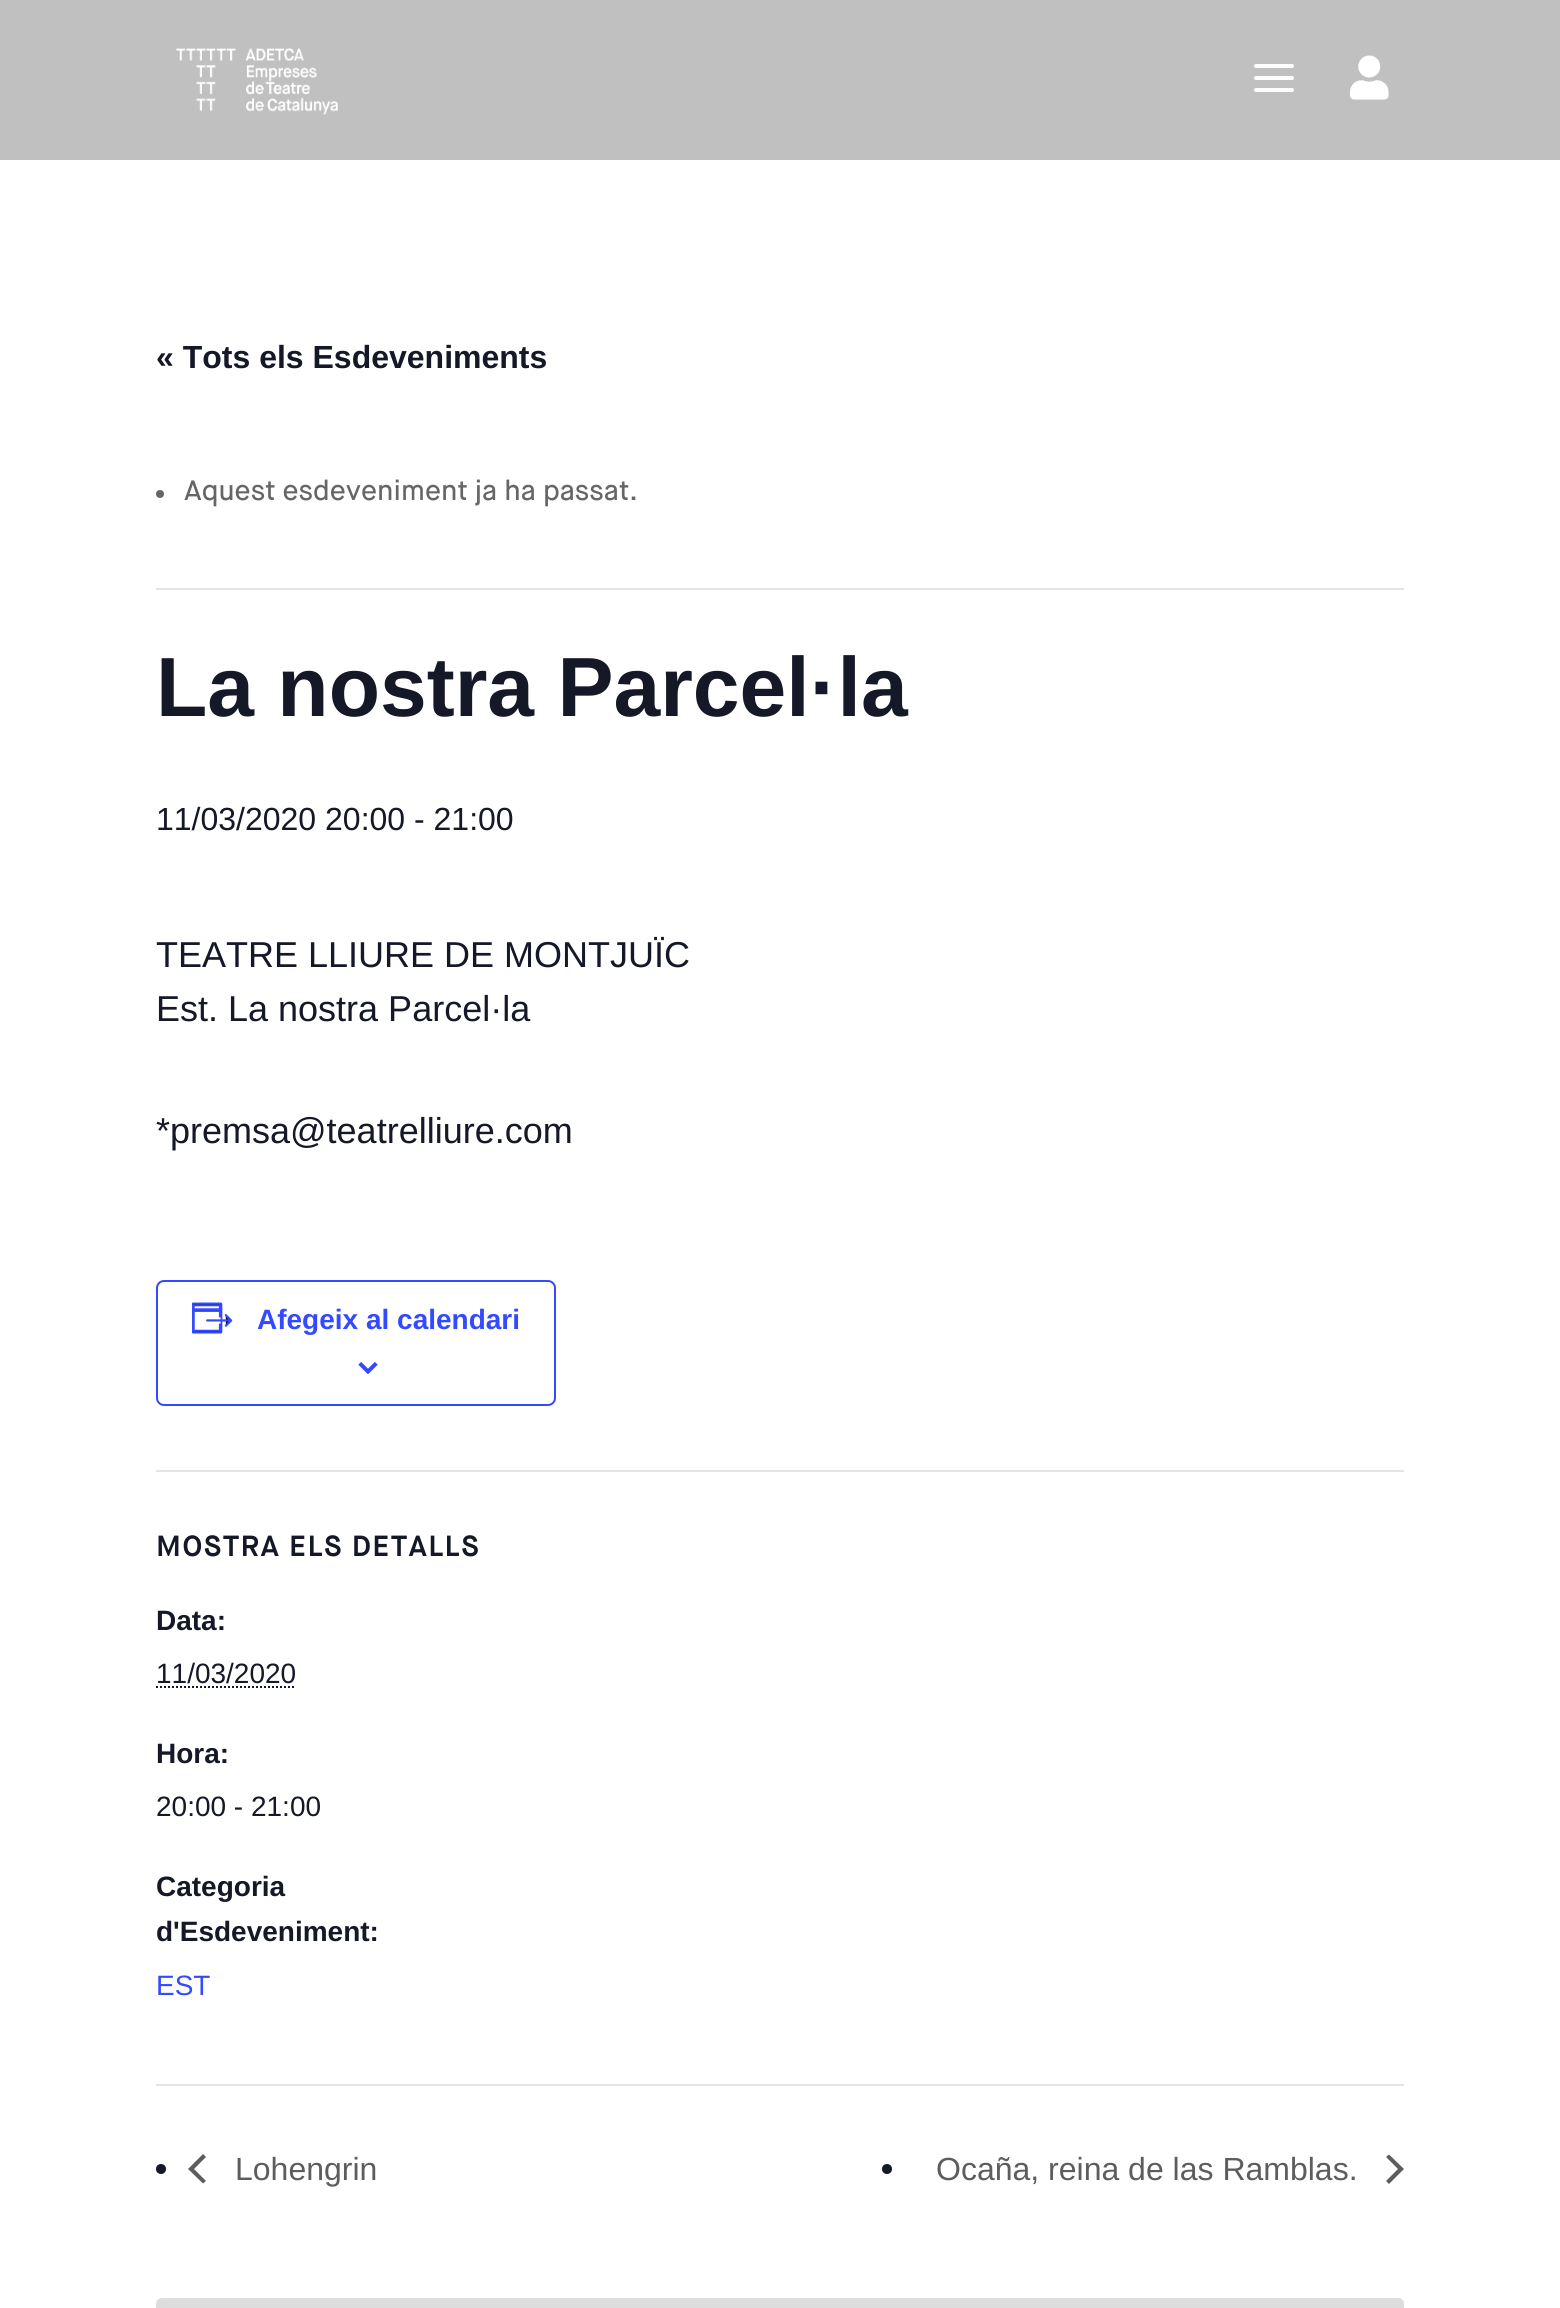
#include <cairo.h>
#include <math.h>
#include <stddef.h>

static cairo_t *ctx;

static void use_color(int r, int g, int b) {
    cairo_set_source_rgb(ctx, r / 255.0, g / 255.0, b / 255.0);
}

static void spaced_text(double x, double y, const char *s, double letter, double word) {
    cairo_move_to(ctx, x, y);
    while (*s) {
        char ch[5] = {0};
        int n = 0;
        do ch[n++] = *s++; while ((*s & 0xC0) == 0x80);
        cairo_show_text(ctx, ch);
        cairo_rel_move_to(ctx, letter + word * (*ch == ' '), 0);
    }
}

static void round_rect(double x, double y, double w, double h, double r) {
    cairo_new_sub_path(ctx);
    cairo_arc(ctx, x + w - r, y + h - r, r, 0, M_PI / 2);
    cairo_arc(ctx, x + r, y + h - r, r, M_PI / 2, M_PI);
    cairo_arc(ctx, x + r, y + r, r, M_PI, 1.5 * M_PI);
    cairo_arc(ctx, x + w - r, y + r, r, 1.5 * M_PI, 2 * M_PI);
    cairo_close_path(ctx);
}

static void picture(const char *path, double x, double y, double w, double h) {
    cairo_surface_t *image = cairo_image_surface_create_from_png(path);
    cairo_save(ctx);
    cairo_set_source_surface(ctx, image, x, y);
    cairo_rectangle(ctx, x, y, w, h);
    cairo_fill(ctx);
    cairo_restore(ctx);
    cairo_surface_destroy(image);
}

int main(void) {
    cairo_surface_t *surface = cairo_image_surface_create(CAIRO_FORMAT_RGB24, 1560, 2308);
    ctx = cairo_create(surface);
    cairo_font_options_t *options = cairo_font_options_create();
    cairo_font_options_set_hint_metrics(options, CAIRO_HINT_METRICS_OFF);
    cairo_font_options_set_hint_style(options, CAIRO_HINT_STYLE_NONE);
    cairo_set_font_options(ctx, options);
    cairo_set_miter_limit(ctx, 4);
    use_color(255, 255, 255);
    cairo_paint(ctx);
    use_color(192, 192, 192);
    cairo_rectangle(ctx, 0, 0, 1560, 160);
    cairo_fill(ctx);
    picture("img1.png", 176, 48, 162, 67);
    picture("img2.png", 1254, 64, 40, 28);
    picture("img3.png", 1350, 55, 39, 45);
    cairo_select_font_face(ctx, "Liberation Sans", CAIRO_FONT_SLANT_NORMAL, CAIRO_FONT_WEIGHT_BOLD);
    cairo_set_font_size(ctx, 32);
    use_color(20, 24, 39);
    cairo_move_to(ctx, 156, 368);
    cairo_show_text(ctx, "« Tots els Esdeveniments");
    use_color(228, 228, 228);
    cairo_rectangle(ctx, 156, 588, 1248, 2);
    cairo_fill(ctx);
    use_color(102, 102, 102);
    cairo_arc(ctx, 160, 494, 4, 0, 2 * M_PI);
    cairo_fill(ctx);
    cairo_select_font_face(ctx, "Maison Neue Medium", CAIRO_FONT_SLANT_NORMAL, CAIRO_FONT_WEIGHT_NORMAL);
    cairo_set_font_size(ctx, 28);
    cairo_move_to(ctx, 184, 500);
    cairo_show_text(ctx, "Aquest esdeveniment ja ha passat.");
    cairo_select_font_face(ctx, "Liberation Sans", CAIRO_FONT_SLANT_NORMAL, CAIRO_FONT_WEIGHT_BOLD);
    cairo_set_font_size(ctx, 84);
    use_color(20, 24, 39);
    cairo_move_to(ctx, 156, 716);
    cairo_show_text(ctx, "La nostra Parcel·la");
    cairo_select_font_face(ctx, "Liberation Sans", CAIRO_FONT_SLANT_NORMAL, CAIRO_FONT_WEIGHT_NORMAL);
    cairo_set_font_size(ctx, 32);
    cairo_move_to(ctx, 156, 830);
    cairo_show_text(ctx, "11/03/2020 20:00 - 21:00");
    cairo_set_font_size(ctx, 36);
    cairo_move_to(ctx, 156, 967);
    cairo_show_text(ctx, "TEATRE LLIURE DE MONTJUÏC");
    cairo_move_to(ctx, 156, 1021);
    cairo_show_text(ctx, "Est. La nostra Parcel·la");
    cairo_move_to(ctx, 156, 1143);
    cairo_show_text(ctx, "*premsa@teatrelliure.com");
    round_rect(157, 1281, 398, 124, 7);
    use_color(51, 74, 255);
    cairo_stroke(ctx);
    picture("img4.png", 192, 1302, 41, 32);
    cairo_select_font_face(ctx, "Liberation Sans", CAIRO_FONT_SLANT_NORMAL, CAIRO_FONT_WEIGHT_BOLD);
    cairo_set_font_size(ctx, 28);
    cairo_move_to(ctx, 257, 1329);
    cairo_show_text(ctx, "Afegeix al calendari");
    picture("img5.png", 358, 1362, 20, 12);
    use_color(228, 228, 228);
    cairo_rectangle(ctx, 156, 1470, 1248, 2);
    cairo_fill(ctx);
    cairo_select_font_face(ctx, "Maison Neue", CAIRO_FONT_SLANT_NORMAL, CAIRO_FONT_WEIGHT_BOLD);
    use_color(20, 24, 39);
    spaced_text(156, 1556, "MOSTRA ELS DETALLS", 2, 0);
    cairo_select_font_face(ctx, "Liberation Sans", CAIRO_FONT_SLANT_NORMAL, CAIRO_FONT_WEIGHT_BOLD);
    cairo_move_to(ctx, 156, 1630);
    cairo_show_text(ctx, "Data:");
    cairo_select_font_face(ctx, "Liberation Sans", CAIRO_FONT_SLANT_NORMAL, CAIRO_FONT_WEIGHT_NORMAL);
    cairo_move_to(ctx, 156, 1683);
    cairo_show_text(ctx, "11/03/2020");
    cairo_new_path(ctx);
    cairo_move_to(ctx, 156, 1687);
    cairo_line_to(ctx, 296, 1687);
    cairo_set_dash(ctx, (double[]){2, 2}, 2, 0);
    cairo_stroke(ctx);
    cairo_select_font_face(ctx, "Liberation Sans", CAIRO_FONT_SLANT_NORMAL, CAIRO_FONT_WEIGHT_BOLD);
    cairo_move_to(ctx, 156, 1763);
    cairo_show_text(ctx, "Hora:");
    cairo_select_font_face(ctx, "Liberation Sans", CAIRO_FONT_SLANT_NORMAL, CAIRO_FONT_WEIGHT_NORMAL);
    cairo_move_to(ctx, 156, 1816);
    cairo_show_text(ctx, "20:00 - 21:00");
    cairo_select_font_face(ctx, "Liberation Sans", CAIRO_FONT_SLANT_NORMAL, CAIRO_FONT_WEIGHT_BOLD);
    cairo_move_to(ctx, 156, 1896);
    cairo_show_text(ctx, "Categoria");
    cairo_move_to(ctx, 156, 1941);
    cairo_show_text(ctx, "d'Esdeveniment:");
    cairo_select_font_face(ctx, "Liberation Sans", CAIRO_FONT_SLANT_NORMAL, CAIRO_FONT_WEIGHT_NORMAL);
    use_color(51, 74, 255);
    cairo_move_to(ctx, 156, 1995);
    cairo_show_text(ctx, "EST");
    use_color(228, 228, 228);
    cairo_rectangle(ctx, 156, 2084, 1248, 2);
    cairo_fill(ctx);
    use_color(20, 24, 39);
    cairo_arc(ctx, 161, 2169, 5, 0, 2 * M_PI);
    cairo_fill(ctx);
    use_color(93, 93, 93);
    cairo_new_path(ctx);
    cairo_move_to(ctx, 206, 2181);
    cairo_line_to(ctx, 203, 2183.5);
    cairo_line_to(ctx, 188, 2169);
    cairo_line_to(ctx, 203, 2154);
    cairo_line_to(ctx, 206, 2157);
    cairo_line_to(ctx, 194, 2169);
    cairo_close_path(ctx);
    cairo_fill(ctx);
    cairo_set_font_size(ctx, 32);
    cairo_move_to(ctx, 235, 2180);
    cairo_show_text(ctx, "Lohengrin");
    use_color(20, 24, 39);
    cairo_new_path(ctx);
    cairo_arc(ctx, 887, 2169, 5, 0, 2 * M_PI);
    cairo_fill(ctx);
    use_color(93, 93, 93);
    cairo_move_to(ctx, 936, 2180);
    cairo_show_text(ctx, "Ocaña, reina de las Ramblas.");
    cairo_new_path(ctx);
    cairo_move_to(ctx, 1386, 2157);
    cairo_line_to(ctx, 1389, 2154.5);
    cairo_line_to(ctx, 1404, 2169);
    cairo_line_to(ctx, 1389, 2184);
    cairo_line_to(ctx, 1386, 2181);
    cairo_line_to(ctx, 1398, 2169);
    cairo_close_path(ctx);
    cairo_fill(ctx);
    round_rect(157, 2299, 1246, 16, 5);
    use_color(221, 221, 221);
    cairo_set_dash(ctx, NULL, 0, 0);
    cairo_stroke(ctx);
    cairo_new_path(ctx);
    cairo_move_to(ctx, 166, 2299);
    cairo_line_to(ctx, 1398, 2299);
    cairo_curve_to(ctx, 1401, 2299, 1403, 2301, 1403, 2304);
    cairo_line_to(ctx, 1403, 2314);
    cairo_curve_to(ctx, 1403, 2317, 1401, 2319, 1398, 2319);
    cairo_line_to(ctx, 166, 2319);
    cairo_curve_to(ctx, 161, 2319, 157, 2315, 157, 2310);
    cairo_line_to(ctx, 157, 2308);
    cairo_curve_to(ctx, 157, 2303, 161, 2299, 166, 2299);
    cairo_close_path(ctx);
    cairo_fill_preserve(ctx);
    cairo_stroke(ctx);
    cairo_surface_write_to_png(surface, "result.png");
    cairo_font_options_destroy(options);
    cairo_destroy(ctx);
    cairo_surface_destroy(surface);
    return 0;
}
